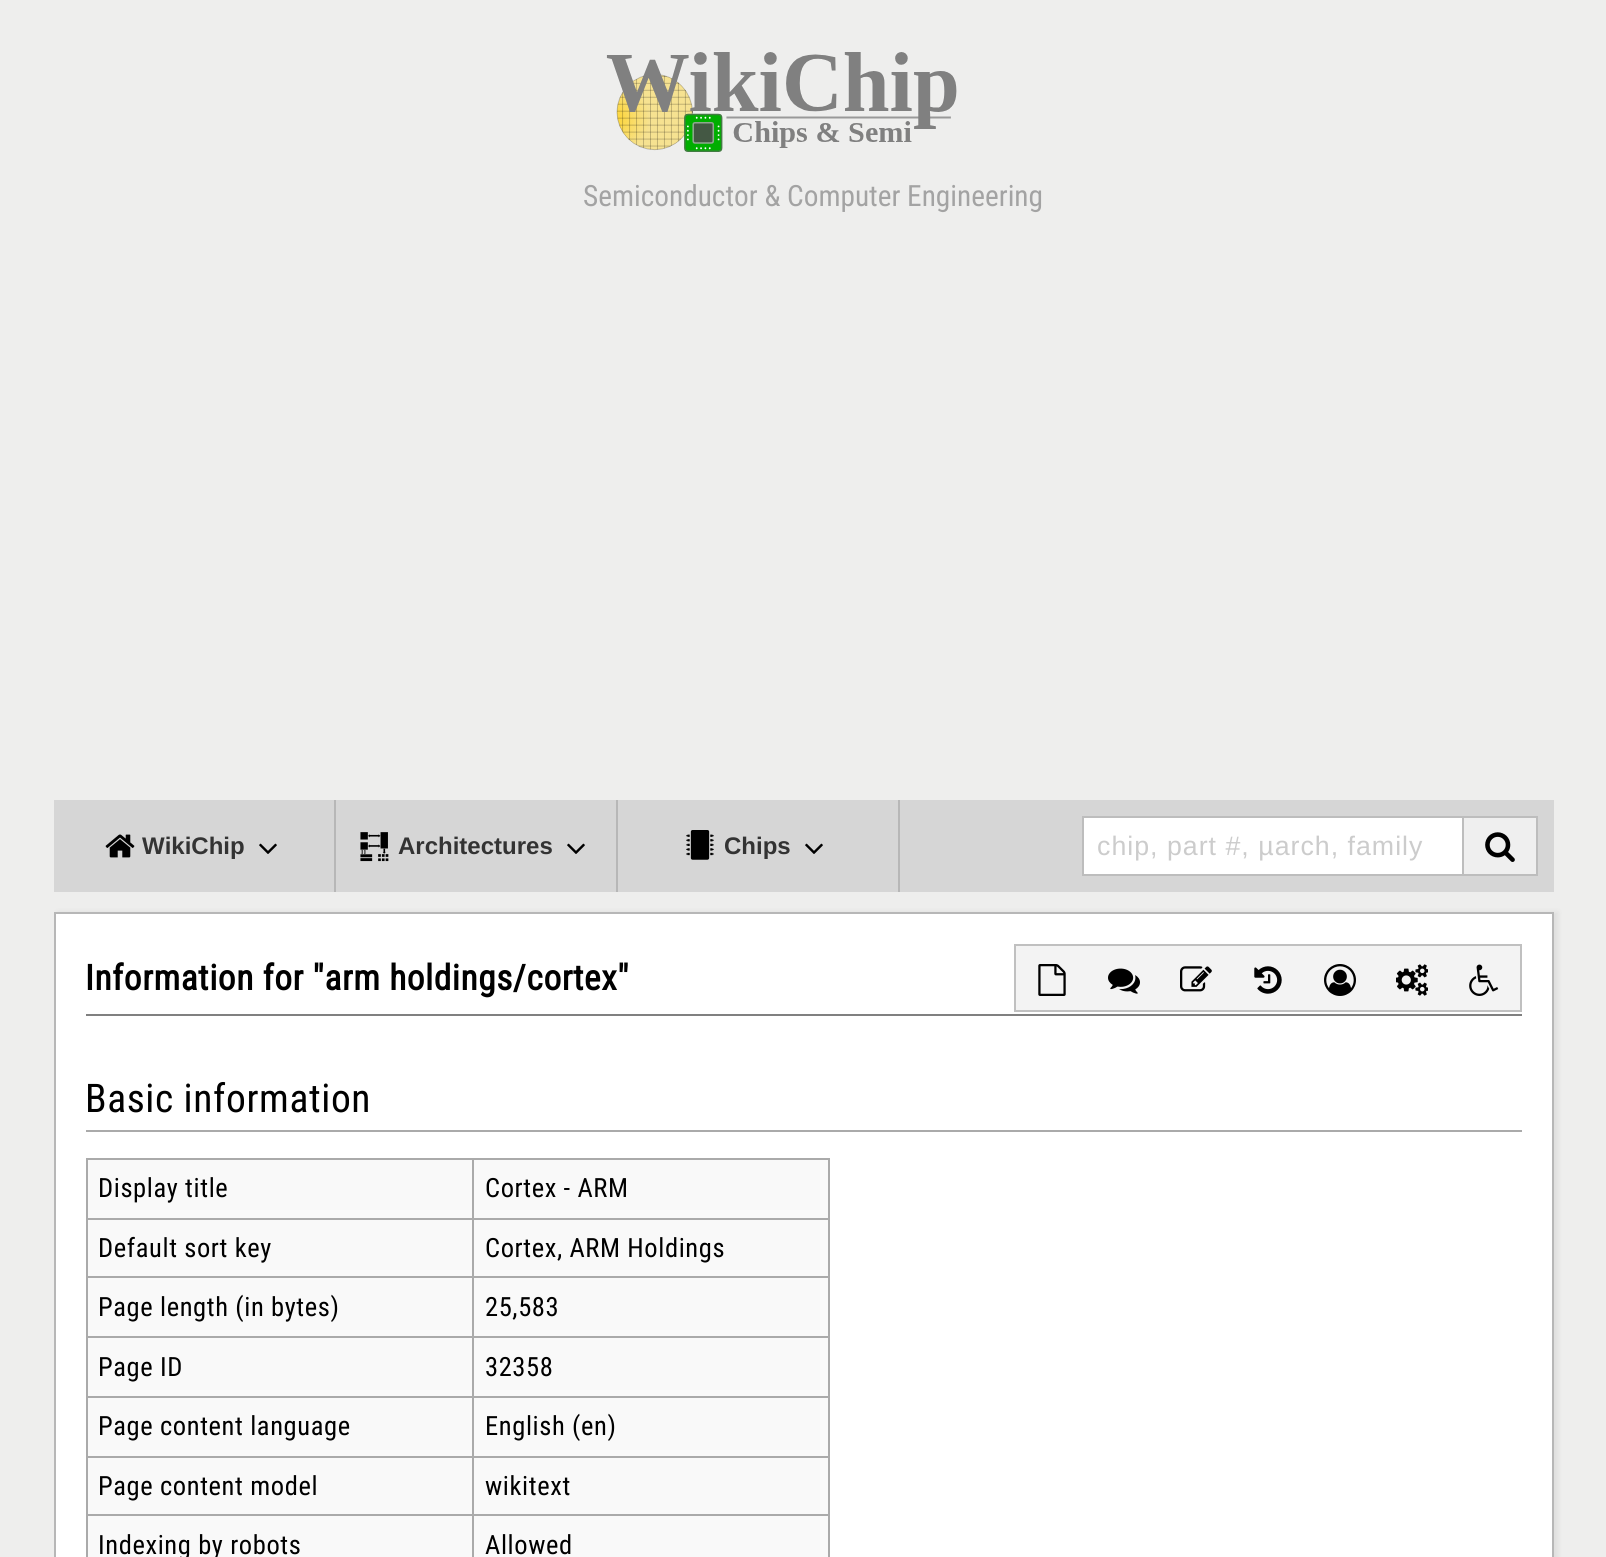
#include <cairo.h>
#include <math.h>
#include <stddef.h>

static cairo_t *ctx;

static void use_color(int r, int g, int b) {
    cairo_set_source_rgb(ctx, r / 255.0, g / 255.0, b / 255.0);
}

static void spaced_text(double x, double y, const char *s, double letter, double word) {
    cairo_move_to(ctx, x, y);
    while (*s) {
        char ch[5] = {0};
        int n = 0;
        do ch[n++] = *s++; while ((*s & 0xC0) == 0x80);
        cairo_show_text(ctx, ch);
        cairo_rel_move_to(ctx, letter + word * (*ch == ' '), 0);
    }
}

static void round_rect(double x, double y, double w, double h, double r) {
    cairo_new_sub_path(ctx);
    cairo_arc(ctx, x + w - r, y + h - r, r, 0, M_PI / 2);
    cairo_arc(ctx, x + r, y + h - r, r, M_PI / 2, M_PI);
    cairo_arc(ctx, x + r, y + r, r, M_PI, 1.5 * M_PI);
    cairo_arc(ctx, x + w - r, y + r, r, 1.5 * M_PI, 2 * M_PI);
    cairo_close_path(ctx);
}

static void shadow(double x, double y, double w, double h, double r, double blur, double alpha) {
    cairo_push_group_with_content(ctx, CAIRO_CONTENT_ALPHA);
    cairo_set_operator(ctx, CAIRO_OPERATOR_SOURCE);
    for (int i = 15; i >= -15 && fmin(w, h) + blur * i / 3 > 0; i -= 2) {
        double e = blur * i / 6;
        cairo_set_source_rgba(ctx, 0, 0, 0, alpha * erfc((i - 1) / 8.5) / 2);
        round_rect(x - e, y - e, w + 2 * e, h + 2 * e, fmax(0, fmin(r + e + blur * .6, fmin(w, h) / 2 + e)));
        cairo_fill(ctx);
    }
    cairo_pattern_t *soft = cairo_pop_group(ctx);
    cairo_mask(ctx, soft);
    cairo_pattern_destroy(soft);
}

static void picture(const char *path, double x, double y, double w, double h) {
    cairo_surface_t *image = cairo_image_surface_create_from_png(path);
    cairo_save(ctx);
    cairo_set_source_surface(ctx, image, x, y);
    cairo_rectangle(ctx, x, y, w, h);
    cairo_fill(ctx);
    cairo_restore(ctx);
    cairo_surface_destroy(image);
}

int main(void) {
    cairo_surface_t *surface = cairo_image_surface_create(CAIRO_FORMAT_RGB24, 1606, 1557);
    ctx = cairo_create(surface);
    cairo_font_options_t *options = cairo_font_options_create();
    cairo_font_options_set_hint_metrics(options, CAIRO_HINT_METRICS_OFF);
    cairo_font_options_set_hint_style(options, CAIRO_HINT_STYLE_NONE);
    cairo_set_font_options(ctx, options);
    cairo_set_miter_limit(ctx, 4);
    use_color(238, 238, 237);
    cairo_paint(ctx);
    picture("img1.png", 606, 52, 351, 100);
    cairo_select_font_face(ctx, "Roboto Condensed", CAIRO_FONT_SLANT_NORMAL, CAIRO_FONT_WEIGHT_NORMAL);
    cairo_set_font_size(ctx, 29.3);
    use_color(163, 163, 163);
    cairo_move_to(ctx, 583, 206);
    cairo_show_text(ctx, "Semiconductor & Computer Engineering");
    use_color(214, 214, 214);
    cairo_rectangle(ctx, 54, 800, 1500, 92);
    cairo_fill(ctx);
    use_color(183, 183, 183);
    cairo_rectangle(ctx, 334, 800, 2, 92);
    cairo_fill(ctx);
    picture("img2.png", 105, 834, 30, 24);
    cairo_select_font_face(ctx, "Liberation Sans", CAIRO_FONT_SLANT_NORMAL, CAIRO_FONT_WEIGHT_BOLD);
    cairo_set_font_size(ctx, 24);
    use_color(51, 51, 51);
    cairo_move_to(ctx, 142, 854);
    cairo_show_text(ctx, "WikiChip");
    picture("img3.png", 259, 843, 18, 11);
    use_color(183, 183, 183);
    cairo_rectangle(ctx, 616, 800, 2, 92);
    cairo_fill(ctx);
    picture("img4.png", 360, 832, 29, 30);
    use_color(51, 51, 51);
    cairo_move_to(ctx, 398, 854);
    cairo_show_text(ctx, "Architectures");
    picture("img3.png", 567, 843, 18, 11);
    use_color(183, 183, 183);
    cairo_rectangle(ctx, 898, 800, 2, 92);
    cairo_fill(ctx);
    picture("img5.png", 686, 830, 28, 30);
    use_color(51, 51, 51);
    cairo_move_to(ctx, 724, 854);
    cairo_show_text(ctx, "Chips");
    picture("img3.png", 805, 843, 18, 11);
    use_color(255, 255, 255);
    cairo_rectangle(ctx, 1084, 818, 378, 56);
    cairo_fill(ctx);
    cairo_rectangle(ctx, 1083, 817, 384, 58);
    use_color(189, 189, 189);
    cairo_stroke(ctx);
    cairo_select_font_face(ctx, "Liberation Sans", CAIRO_FONT_SLANT_NORMAL, CAIRO_FONT_WEIGHT_NORMAL);
    cairo_set_font_size(ctx, 26.75);
    use_color(204, 204, 204);
    spaced_text(1097, 855, "chip, part #, µarch, family", 1, 0);
    use_color(239, 239, 239);
    cairo_rectangle(ctx, 1463, 817, 74, 58);
    cairo_fill_preserve(ctx);
    use_color(189, 189, 189);
    cairo_stroke(ctx);
    picture("img6.png", 1485, 832, 30, 30);
    use_color(0, 0, 0);
    shadow(58, 912, 1500, 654, 0, 3, 0.07);
    use_color(255, 255, 255);
    cairo_rectangle(ctx, 55, 913, 1498, 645);
    cairo_fill_preserve(ctx);
    use_color(183, 183, 183);
    cairo_stroke(ctx);
    use_color(128, 128, 128);
    cairo_rectangle(ctx, 86, 1014, 1436, 2);
    cairo_fill(ctx);
    cairo_select_font_face(ctx, "Roboto Condensed", CAIRO_FONT_SLANT_NORMAL, CAIRO_FONT_WEIGHT_BOLD);
    cairo_set_font_size(ctx, 35.25);
    use_color(0, 0, 0);
    spaced_text(85, 990, "Information for \"arm holdings/cortex\"", 0.6, 0);
    cairo_rectangle(ctx, 1015, 945, 506, 66);
    use_color(192, 192, 192);
    cairo_stroke(ctx);
    use_color(243, 243, 243);
    cairo_rectangle(ctx, 1016, 946, 504, 64);
    cairo_fill(ctx);
    picture("img7.png", 1038, 964, 28, 32);
    picture("img8.png", 1108, 968, 32, 26);
    picture("img9.png", 1180, 966, 32, 26);
    picture("img10.png", 1254, 966, 28, 28);
    picture("img11.png", 1324, 964, 32, 32);
    picture("img12.png", 1396, 964, 32, 32);
    picture("img13.png", 1469, 964, 30, 32);
    use_color(170, 170, 170);
    cairo_rectangle(ctx, 86, 1130, 1436, 2);
    cairo_fill(ctx);
    cairo_select_font_face(ctx, "Roboto Condensed", CAIRO_FONT_SLANT_NORMAL, CAIRO_FONT_WEIGHT_NORMAL);
    cairo_set_font_size(ctx, 39.5);
    use_color(0, 0, 0);
    spaced_text(85, 1112, "Basic information", 0.6, 0);
    use_color(249, 249, 249);
    cairo_rectangle(ctx, 88, 1160, 740, 397);
    cairo_fill(ctx);
    use_color(170, 170, 170);
    cairo_rectangle(ctx, 86, 1158, 744, 2);
    cairo_fill(ctx);
    cairo_rectangle(ctx, 828, 1158, 2, 399);
    cairo_fill(ctx);
    cairo_rectangle(ctx, 86, 1158, 2, 399);
    cairo_fill(ctx);
    cairo_set_font_size(ctx, 26.5);
    use_color(0, 0, 0);
    spaced_text(98, 1197, "Display title", 0.6, 0);
    use_color(170, 170, 170);
    cairo_rectangle(ctx, 472, 1218, 358, 2);
    cairo_fill(ctx);
    cairo_rectangle(ctx, 472, 1276, 358, 2);
    cairo_fill(ctx);
    cairo_rectangle(ctx, 472, 1336, 358, 2);
    cairo_fill(ctx);
    cairo_rectangle(ctx, 472, 1396, 358, 2);
    cairo_fill(ctx);
    cairo_rectangle(ctx, 472, 1456, 358, 2);
    cairo_fill(ctx);
    cairo_rectangle(ctx, 472, 1514, 358, 2);
    cairo_fill(ctx);
    cairo_rectangle(ctx, 472, 1514, 2, 43);
    cairo_fill(ctx);
    cairo_rectangle(ctx, 86, 1514, 388, 2);
    cairo_fill(ctx);
    cairo_rectangle(ctx, 472, 1456, 2, 60);
    cairo_fill(ctx);
    cairo_rectangle(ctx, 86, 1456, 388, 2);
    cairo_fill(ctx);
    cairo_rectangle(ctx, 472, 1396, 2, 62);
    cairo_fill(ctx);
    cairo_rectangle(ctx, 86, 1396, 388, 2);
    cairo_fill(ctx);
    cairo_rectangle(ctx, 472, 1336, 2, 62);
    cairo_fill(ctx);
    cairo_rectangle(ctx, 86, 1336, 388, 2);
    cairo_fill(ctx);
    cairo_rectangle(ctx, 472, 1276, 2, 62);
    cairo_fill(ctx);
    cairo_rectangle(ctx, 86, 1276, 388, 2);
    cairo_fill(ctx);
    cairo_rectangle(ctx, 472, 1218, 2, 60);
    cairo_fill(ctx);
    cairo_rectangle(ctx, 86, 1218, 388, 2);
    cairo_fill(ctx);
    cairo_rectangle(ctx, 472, 1158, 2, 62);
    cairo_fill(ctx);
    use_color(0, 0, 0);
    spaced_text(485, 1197, "Cortex - ARM", 0.6, 0);
    spaced_text(98, 1257, "Default sort key", 0.6, 0);
    spaced_text(485, 1257, "Cortex, ARM Holdings", 0.6, 0);
    spaced_text(98, 1316, "Page length (in bytes)", 0.6, 0);
    spaced_text(485, 1316, "25,583", 0.6, 0);
    spaced_text(98, 1376, "Page ID", 0.6, 0);
    spaced_text(485, 1376, "32358", 0.6, 0);
    spaced_text(98, 1435, "Page content language", 0.6, 0);
    spaced_text(485, 1435, "English (en)", 0.6, 0);
    spaced_text(98, 1495, "Page content model", 0.6, 0);
    spaced_text(485, 1495, "wikitext", 0.6, 0);
    spaced_text(98, 1554, "Indexing by robots", 0.6, 0);
    spaced_text(485, 1554, "Allowed", 0.6, 0);
    cairo_surface_write_to_png(surface, "result.png");
    cairo_font_options_destroy(options);
    cairo_destroy(ctx);
    cairo_surface_destroy(surface);
    return 0;
}
